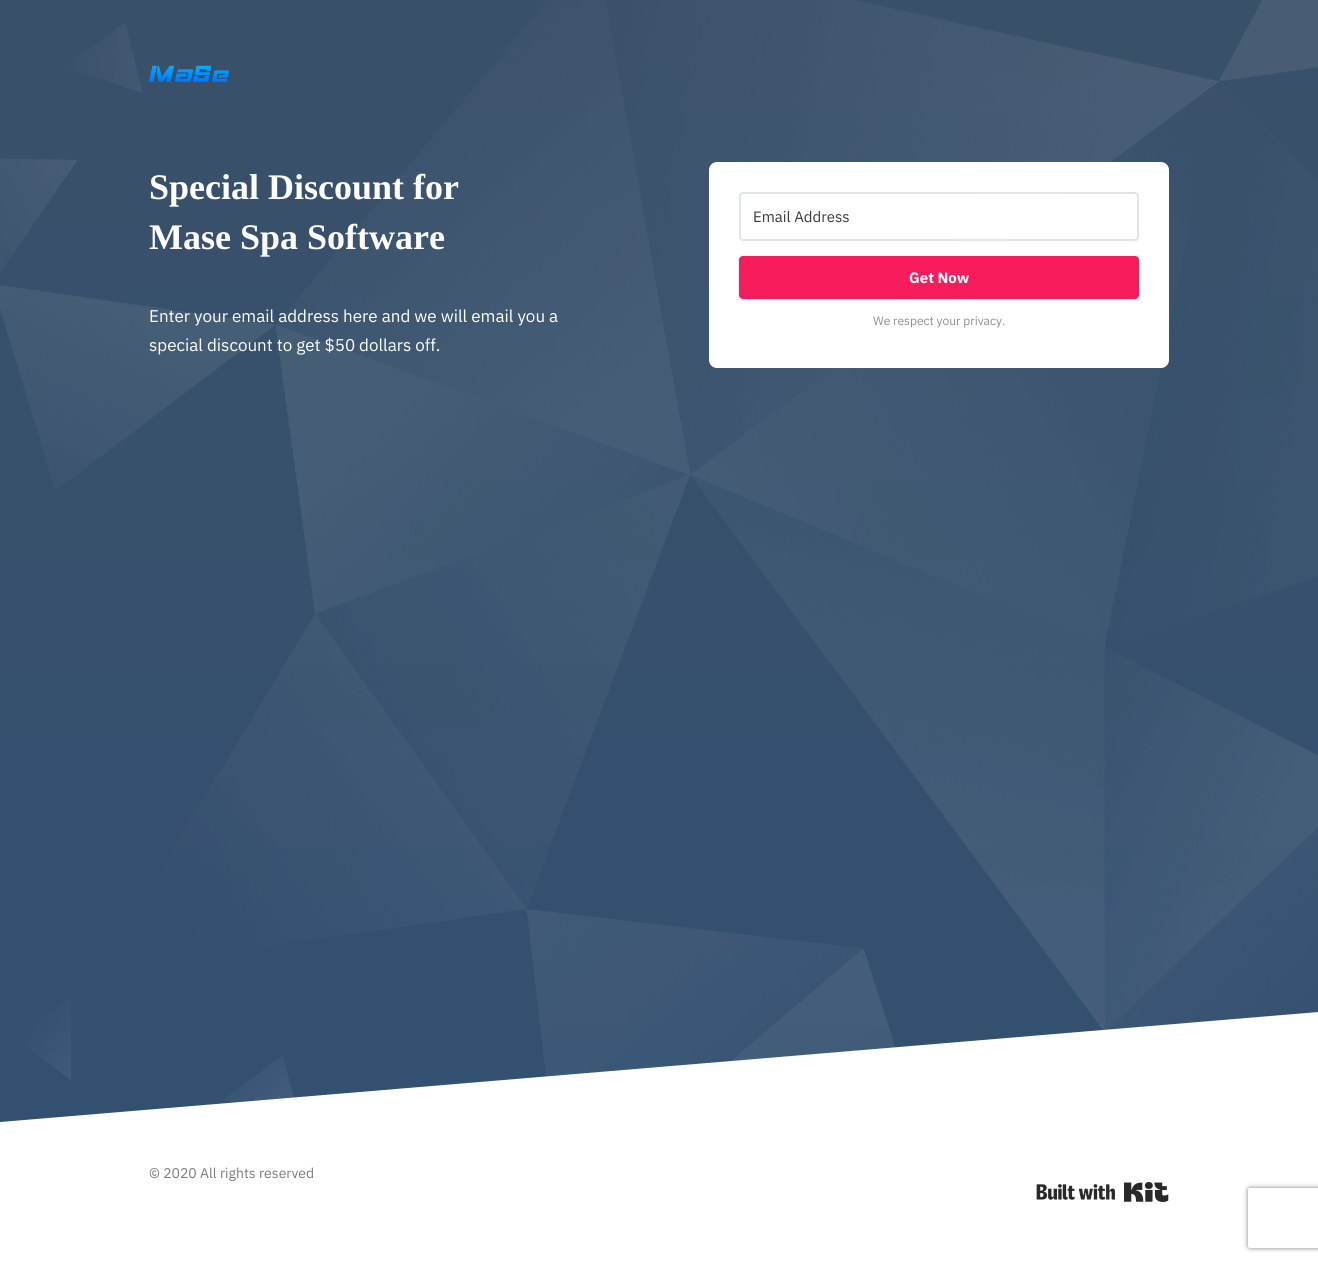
#include <cairo.h>
#include <math.h>
#include <stddef.h>

static cairo_t *ctx;

static void use_color(int r, int g, int b) {
    cairo_set_source_rgb(ctx, r / 255.0, g / 255.0, b / 255.0);
}

static void round_rect(double x, double y, double w, double h, double r) {
    cairo_new_sub_path(ctx);
    cairo_arc(ctx, x + w - r, y + h - r, r, 0, M_PI / 2);
    cairo_arc(ctx, x + r, y + h - r, r, M_PI / 2, M_PI);
    cairo_arc(ctx, x + r, y + r, r, M_PI, 1.5 * M_PI);
    cairo_arc(ctx, x + w - r, y + r, r, 1.5 * M_PI, 2 * M_PI);
    cairo_close_path(ctx);
}

static void shadow(double x, double y, double w, double h, double r, double blur, double alpha) {
    cairo_push_group_with_content(ctx, CAIRO_CONTENT_ALPHA);
    cairo_set_operator(ctx, CAIRO_OPERATOR_SOURCE);
    for (int i = 15; i >= -15 && fmin(w, h) + blur * i / 3 > 0; i -= 2) {
        double e = blur * i / 6;
        cairo_set_source_rgba(ctx, 0, 0, 0, alpha * erfc((i - 1) / 8.5) / 2);
        round_rect(x - e, y - e, w + 2 * e, h + 2 * e, fmax(0, fmin(r + e + blur * .6, fmin(w, h) / 2 + e)));
        cairo_fill(ctx);
    }
    cairo_pattern_t *soft = cairo_pop_group(ctx);
    cairo_mask(ctx, soft);
    cairo_pattern_destroy(soft);
}

static void picture(const char *path, double x, double y, double w, double h) {
    cairo_surface_t *image = cairo_image_surface_create_from_png(path);
    cairo_save(ctx);
    cairo_set_source_surface(ctx, image, x, y);
    cairo_rectangle(ctx, x, y, w, h);
    cairo_fill(ctx);
    cairo_restore(ctx);
    cairo_surface_destroy(image);
}

int main(void) {
    cairo_surface_t *surface = cairo_image_surface_create(CAIRO_FORMAT_RGB24, 1318, 1262);
    ctx = cairo_create(surface);
    cairo_font_options_t *options = cairo_font_options_create();
    cairo_font_options_set_hint_metrics(options, CAIRO_HINT_METRICS_OFF);
    cairo_font_options_set_hint_style(options, CAIRO_HINT_STYLE_NONE);
    cairo_set_font_options(ctx, options);
    cairo_set_miter_limit(ctx, 4);
    cairo_pattern_t *gradient;
    use_color(255, 255, 255);
    cairo_paint(ctx);
    gradient = cairo_pattern_create_linear(659, 0, 659, 1122);
    cairo_pattern_add_color_stop_rgba(gradient, 0, 0.224, 0.314, 0.412, 1);
    cairo_pattern_add_color_stop_rgba(gradient, 1, 0.2, 0.314, 0.439, 1);
    cairo_set_source(ctx, gradient);
    cairo_pattern_destroy(gradient);
    cairo_rectangle(ctx, 0, 0, 1318, 1122);
    cairo_fill(ctx);
    cairo_select_font_face(ctx, "Liberation Serif", CAIRO_FONT_SLANT_NORMAL, CAIRO_FONT_WEIGHT_BOLD);
    cairo_set_font_size(ctx, 36);
    use_color(255, 255, 255);
    cairo_move_to(ctx, 149, 199);
    cairo_show_text(ctx, "Special Discount for");
    cairo_move_to(ctx, 149, 249);
    cairo_show_text(ctx, "Mase Spa Software");
    cairo_select_font_face(ctx, "IBM Plex Sans", CAIRO_FONT_SLANT_NORMAL, CAIRO_FONT_WEIGHT_NORMAL);
    cairo_set_font_size(ctx, 17);
    cairo_move_to(ctx, 149, 322);
    cairo_show_text(ctx, "Enter your email address here and we will email you a");
    cairo_move_to(ctx, 149, 351);
    cairo_show_text(ctx, "special discount to get $50 dollars off.");
    round_rect(709, 162, 460, 206, 8);
    cairo_fill(ctx);
    round_rect(740, 193, 398, 47, 3);
    use_color(222, 228, 234);
    cairo_stroke(ctx);
    cairo_set_font_size(ctx, 15);
    use_color(51, 51, 51);
    cairo_move_to(ctx, 753, 222);
    cairo_show_text(ctx, "Email Address");
    cairo_set_font_size(ctx, 12);
    use_color(136, 136, 136);
    cairo_move_to(ctx, 873, 325);
    cairo_show_text(ctx, "We respect your privacy.");
    picture("img1.png", 0, 0, 1318, 1114);
    picture("img2.png", 149, 65, 80, 17);
    use_color(246, 28, 92);
    round_rect(739, 256, 400, 43, 4);
    cairo_fill(ctx);
    cairo_select_font_face(ctx, "IBM Plex Sans", CAIRO_FONT_SLANT_NORMAL, CAIRO_FONT_WEIGHT_BOLD);
    cairo_set_font_size(ctx, 15);
    use_color(255, 255, 255);
    cairo_move_to(ctx, 909, 283);
    cairo_show_text(ctx, "Get Now");
    cairo_new_path(ctx);
    cairo_move_to(ctx, 1318, 1012);
    cairo_line_to(ctx, 1318, 1122);
    cairo_line_to(ctx, 0, 1122);
    cairo_close_path(ctx);
    cairo_fill(ctx);
    cairo_select_font_face(ctx, "IBM Plex Sans", CAIRO_FONT_SLANT_NORMAL, CAIRO_FONT_WEIGHT_NORMAL);
    cairo_set_font_size(ctx, 14);
    use_color(121, 123, 129);
    cairo_move_to(ctx, 149, 1178);
    cairo_show_text(ctx, "© 2020 All rights reserved");
    picture("img3.png", 1036, 1182, 133, 20);
    cairo_save(ctx);
    cairo_set_fill_rule(ctx, CAIRO_FILL_RULE_EVEN_ODD);
    cairo_new_path(ctx);
    cairo_move_to(ctx, 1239, 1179);
    cairo_line_to(ctx, 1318, 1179);
    cairo_line_to(ctx, 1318, 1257);
    cairo_line_to(ctx, 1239, 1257);
    cairo_close_path(ctx);
    cairo_move_to(ctx, 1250, 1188);
    cairo_line_to(ctx, 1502, 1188);
    cairo_curve_to(ctx, 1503, 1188, 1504, 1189, 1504, 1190);
    cairo_line_to(ctx, 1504, 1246);
    cairo_curve_to(ctx, 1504, 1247, 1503, 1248, 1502, 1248);
    cairo_line_to(ctx, 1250, 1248);
    cairo_curve_to(ctx, 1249, 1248, 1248, 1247, 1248, 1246);
    cairo_line_to(ctx, 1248, 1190);
    cairo_curve_to(ctx, 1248, 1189, 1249, 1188, 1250, 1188);
    cairo_close_path(ctx);
    cairo_clip(ctx);
    use_color(128, 128, 128);
    shadow(1248, 1188, 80, 60, 2, 2.5, 1);
    cairo_restore(ctx);
    cairo_surface_write_to_png(surface, "result.png");
    cairo_font_options_destroy(options);
    cairo_destroy(ctx);
    cairo_surface_destroy(surface);
    return 0;
}
